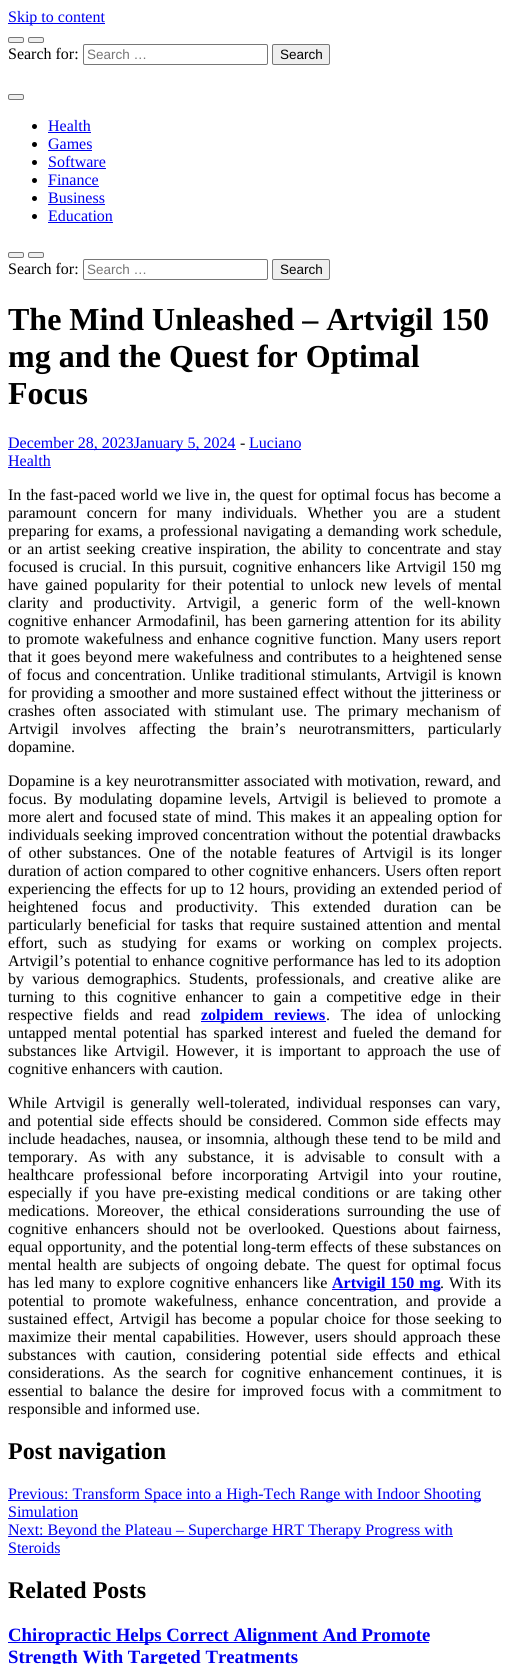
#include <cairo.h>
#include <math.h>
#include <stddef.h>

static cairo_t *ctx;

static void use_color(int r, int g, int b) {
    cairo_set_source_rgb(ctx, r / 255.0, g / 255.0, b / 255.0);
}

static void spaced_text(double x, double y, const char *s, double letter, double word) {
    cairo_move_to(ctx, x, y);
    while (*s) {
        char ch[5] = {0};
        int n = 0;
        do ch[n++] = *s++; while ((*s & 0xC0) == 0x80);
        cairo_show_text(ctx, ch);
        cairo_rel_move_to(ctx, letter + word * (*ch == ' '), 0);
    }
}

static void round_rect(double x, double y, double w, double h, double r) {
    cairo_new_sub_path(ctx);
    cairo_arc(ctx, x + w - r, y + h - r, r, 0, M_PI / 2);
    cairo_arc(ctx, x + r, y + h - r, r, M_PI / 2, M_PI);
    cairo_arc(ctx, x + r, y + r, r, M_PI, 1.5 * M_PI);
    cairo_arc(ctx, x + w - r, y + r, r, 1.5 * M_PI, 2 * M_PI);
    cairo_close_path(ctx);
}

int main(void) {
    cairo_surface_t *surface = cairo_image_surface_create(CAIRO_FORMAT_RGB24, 509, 1664);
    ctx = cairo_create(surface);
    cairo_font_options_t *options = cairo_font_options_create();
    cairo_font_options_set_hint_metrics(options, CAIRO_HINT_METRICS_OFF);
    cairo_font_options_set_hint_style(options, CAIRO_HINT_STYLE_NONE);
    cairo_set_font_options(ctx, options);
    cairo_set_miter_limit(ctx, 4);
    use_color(255, 255, 255);
    cairo_paint(ctx);
    use_color(0, 0, 238);
    cairo_rectangle(ctx, 8, 23, 97, 1);
    cairo_fill(ctx);
    cairo_select_font_face(ctx, "Liberation Serif", CAIRO_FONT_SLANT_NORMAL, CAIRO_FONT_WEIGHT_NORMAL);
    cairo_set_font_size(ctx, 16);
    cairo_move_to(ctx, 8, 22);
    cairo_show_text(ctx, "Skip to content");
    use_color(239, 239, 239);
    round_rect(8.5, 37.5, 15, 5, 1.5);
    cairo_fill_preserve(ctx);
    use_color(118, 118, 118);
    cairo_set_line_width(ctx, 1);
    cairo_stroke(ctx);
    use_color(239, 239, 239);
    round_rect(28.5, 37.5, 15, 5, 1.5);
    cairo_fill_preserve(ctx);
    use_color(118, 118, 118);
    cairo_stroke(ctx);
    use_color(0, 0, 0);
    cairo_move_to(ctx, 8, 59);
    cairo_show_text(ctx, "Search for:");
    round_rect(83.5, 44.5, 184, 20, 1.5);
    use_color(118, 118, 118);
    cairo_stroke(ctx);
    cairo_select_font_face(ctx, "Liberation Sans", CAIRO_FONT_SLANT_NORMAL, CAIRO_FONT_WEIGHT_NORMAL);
    cairo_set_font_size(ctx, 13.5);
    use_color(117, 117, 117);
    cairo_move_to(ctx, 87, 59);
    cairo_show_text(ctx, "Search …");
    use_color(239, 239, 239);
    round_rect(272.5, 44.5, 57, 20, 1.5);
    cairo_fill_preserve(ctx);
    use_color(118, 118, 118);
    cairo_stroke(ctx);
    use_color(0, 0, 0);
    cairo_move_to(ctx, 280, 59);
    cairo_show_text(ctx, "Search");
    use_color(239, 239, 239);
    round_rect(8.5, 94.5, 15, 5, 1.5);
    cairo_fill_preserve(ctx);
    use_color(118, 118, 118);
    cairo_stroke(ctx);
    use_color(0, 0, 0);
    cairo_arc(ctx, 34.5, 126.5, 2.5, 0, 2 * M_PI);
    cairo_fill(ctx);
    cairo_select_font_face(ctx, "Liberation Serif", CAIRO_FONT_SLANT_NORMAL, CAIRO_FONT_WEIGHT_NORMAL);
    cairo_set_font_size(ctx, 16);
    use_color(0, 0, 238);
    cairo_move_to(ctx, 48, 131);
    cairo_show_text(ctx, "Health");
    cairo_rectangle(ctx, 48, 132, 43, 1);
    cairo_fill(ctx);
    use_color(0, 0, 0);
    cairo_arc(ctx, 34.5, 144.5, 2.5, 0, 2 * M_PI);
    cairo_fill(ctx);
    use_color(0, 0, 238);
    cairo_move_to(ctx, 48, 149);
    cairo_show_text(ctx, "Games");
    cairo_rectangle(ctx, 48, 150, 44, 1);
    cairo_fill(ctx);
    use_color(0, 0, 0);
    cairo_arc(ctx, 34.5, 162.5, 2.5, 0, 2 * M_PI);
    cairo_fill(ctx);
    use_color(0, 0, 238);
    cairo_move_to(ctx, 48, 167);
    cairo_show_text(ctx, "Software");
    cairo_rectangle(ctx, 48, 168, 58, 1);
    cairo_fill(ctx);
    use_color(0, 0, 0);
    cairo_arc(ctx, 34.5, 180.5, 2.5, 0, 2 * M_PI);
    cairo_fill(ctx);
    use_color(0, 0, 238);
    cairo_move_to(ctx, 48, 185);
    cairo_show_text(ctx, "Finance");
    cairo_rectangle(ctx, 48, 186, 51, 1);
    cairo_fill(ctx);
    use_color(0, 0, 0);
    cairo_arc(ctx, 34.5, 198.5, 2.5, 0, 2 * M_PI);
    cairo_fill(ctx);
    use_color(0, 0, 238);
    cairo_move_to(ctx, 48, 203);
    cairo_show_text(ctx, "Business");
    cairo_rectangle(ctx, 48, 204, 57, 1);
    cairo_fill(ctx);
    use_color(0, 0, 0);
    cairo_arc(ctx, 34.5, 216.5, 2.5, 0, 2 * M_PI);
    cairo_fill(ctx);
    use_color(0, 0, 238);
    cairo_move_to(ctx, 48, 221);
    cairo_show_text(ctx, "Education");
    cairo_rectangle(ctx, 48, 222, 65, 1);
    cairo_fill(ctx);
    use_color(239, 239, 239);
    round_rect(8.5, 252.5, 15, 5, 1.5);
    cairo_fill_preserve(ctx);
    use_color(118, 118, 118);
    cairo_stroke(ctx);
    use_color(239, 239, 239);
    round_rect(28.5, 252.5, 15, 5, 1.5);
    cairo_fill_preserve(ctx);
    use_color(118, 118, 118);
    cairo_stroke(ctx);
    use_color(0, 0, 0);
    cairo_move_to(ctx, 8, 274);
    cairo_show_text(ctx, "Search for:");
    round_rect(83.5, 259.5, 184, 20, 1.5);
    use_color(118, 118, 118);
    cairo_stroke(ctx);
    cairo_select_font_face(ctx, "Liberation Sans", CAIRO_FONT_SLANT_NORMAL, CAIRO_FONT_WEIGHT_NORMAL);
    cairo_set_font_size(ctx, 13.5);
    use_color(117, 117, 117);
    cairo_move_to(ctx, 87, 274);
    cairo_show_text(ctx, "Search …");
    use_color(239, 239, 239);
    round_rect(272.5, 259.5, 57, 20, 1.5);
    cairo_fill_preserve(ctx);
    use_color(118, 118, 118);
    cairo_stroke(ctx);
    use_color(0, 0, 0);
    cairo_move_to(ctx, 280, 274);
    cairo_show_text(ctx, "Search");
    cairo_select_font_face(ctx, "Liberation Serif", CAIRO_FONT_SLANT_NORMAL, CAIRO_FONT_WEIGHT_BOLD);
    cairo_set_font_size(ctx, 32);
    cairo_move_to(ctx, 8, 330);
    cairo_show_text(ctx, "The Mind Unleashed – Artvigil 150");
    cairo_move_to(ctx, 8, 367);
    cairo_show_text(ctx, "mg and the Quest for Optimal");
    cairo_move_to(ctx, 8, 404);
    cairo_show_text(ctx, "Focus");
    use_color(0, 0, 238);
    cairo_rectangle(ctx, 8, 449, 228, 1);
    cairo_fill(ctx);
    cairo_select_font_face(ctx, "Liberation Serif", CAIRO_FONT_SLANT_NORMAL, CAIRO_FONT_WEIGHT_NORMAL);
    cairo_set_font_size(ctx, 16);
    cairo_move_to(ctx, 8, 448);
    cairo_show_text(ctx, "December 28, 2023January 5, 2024");
    use_color(0, 0, 0);
    cairo_move_to(ctx, 240, 448);
    cairo_show_text(ctx, "-");
    use_color(0, 0, 238);
    cairo_move_to(ctx, 249, 448);
    cairo_show_text(ctx, "Luciano");
    cairo_rectangle(ctx, 249, 449, 52, 1);
    cairo_fill(ctx);
    cairo_move_to(ctx, 8, 466);
    cairo_show_text(ctx, "Health");
    cairo_rectangle(ctx, 8, 467, 43, 1);
    cairo_fill(ctx);
    use_color(0, 0, 0);
    spaced_text(8, 500, "In the fast-paced world we live in, the quest for optimal focus has become a", 0, 0.6);
    spaced_text(8, 518, "paramount concern for many individuals. Whether you are a student", 0, 6.25);
    spaced_text(8, 536, "preparing for exams, a professional navigating a demanding work schedule,", 0, 1);
    spaced_text(8, 554, "or an artist seeking creative inspiration, the ability to concentrate and stay", 0, 2);
    spaced_text(8, 572, "focused is crucial. In this pursuit, cognitive enhancers like Artvigil 150 mg", 0, 1.25);
    spaced_text(8, 590, "have gained popularity for their potential to unlock new levels of mental", 0, 2.75);
    spaced_text(8, 608, "clarity and productivity. Artvigil, a generic form of the well-known", 0, 6.75);
    spaced_text(8, 626, "cognitive enhancer Armodafinil, has been garnering attention for its ability", 0, 1.5);
    spaced_text(8, 644, "to promote wakefulness and enhance cognitive function. Many users report", 0, 1.25);
    spaced_text(8, 662, "that it goes beyond mere wakefulness and contributes to a heightened sense", 0, 1);
    spaced_text(8, 680, "of focus and concentration. Unlike traditional stimulants, Artvigil is known", 0, 1.25);
    spaced_text(8, 698, "for providing a smoother and more sustained effect without the jitteriness or", 0, 0.5);
    spaced_text(8, 716, "crashes often associated with stimulant use. The primary mechanism of", 0, 4);
    spaced_text(8, 734, "Artvigil involves affecting the brain’s neurotransmitters, particularly", 0, 9);
    cairo_move_to(ctx, 8, 752);
    cairo_show_text(ctx, "dopamine.");
    spaced_text(8, 786, "Dopamine is a key neurotransmitter associated with motivation, reward, and", 0, 0.5);
    spaced_text(8, 804, "focus. By modulating dopamine levels, Artvigil is believed to promote a", 0, 3);
    spaced_text(8, 822, "more alert and focused state of mind. This makes it an appealing option for", 0, 1);
    spaced_text(8, 840, "individuals seeking improved concentration without the potential drawbacks", 0, 0.5);
    spaced_text(8, 858, "of other substances. One of the notable features of Artvigil is its longer", 0, 3.25);
    spaced_text(8, 876, "duration of action compared to other cognitive enhancers. Users often report", 0, 0.4);
    spaced_text(8, 894, "experiencing the effects for up to 12 hours, providing an extended period of", 0, 0.75);
    spaced_text(8, 912, "heightened focus and productivity. This extended duration can be", 0, 9.25);
    spaced_text(8, 930, "particularly beneficial for tasks that require sustained attention and mental", 0, 2);
    spaced_text(8, 948, "effort, such as studying for exams or working on complex projects.", 0, 6.5);
    spaced_text(8, 966, "Artvigil’s potential to enhance cognitive performance has led to its adoption", 0, 0.5);
    spaced_text(8, 984, "by various demographics. Students, professionals, and creative alike are", 0, 4);
    spaced_text(8, 1002, "turning to this cognitive enhancer to gain a competitive edge in their", 0, 5);
    spaced_text(8, 1020, "respective fields and read", 0, 6.5);
    use_color(0, 0, 238);
    cairo_rectangle(ctx, 201, 1021, 125, 1);
    cairo_fill(ctx);
    cairo_select_font_face(ctx, "Liberation Serif", CAIRO_FONT_SLANT_NORMAL, CAIRO_FONT_WEIGHT_BOLD);
    spaced_text(201, 1020, "zolpidem reviews", 0, 6.5);
    cairo_select_font_face(ctx, "Liberation Serif", CAIRO_FONT_SLANT_NORMAL, CAIRO_FONT_WEIGHT_NORMAL);
    use_color(0, 0, 0);
    spaced_text(326, 1020, ". The idea of unlocking", 0, 6.5);
    spaced_text(8, 1038, "untapped mental potential has sparked interest and fueled the demand for", 0, 2.5);
    spaced_text(8, 1056, "substances like Artvigil. However, it is important to approach the use of", 0, 2.9);
    cairo_move_to(ctx, 8, 1074);
    cairo_show_text(ctx, "cognitive enhancers with caution.");
    spaced_text(8, 1108, "While Artvigil is generally well-tolerated, individual responses can vary,", 0, 3.25);
    spaced_text(8, 1126, "and potential side effects should be considered. Common side effects may", 0, 1.9);
    spaced_text(8, 1144, "include headaches, nausea, or insomnia, although these tend to be mild and", 0, 1.1);
    spaced_text(8, 1162, "temporary. As with any substance, it is advisable to consult with a", 0, 6.25);
    spaced_text(8, 1180, "healthcare professional before incorporating Artvigil into your routine,", 0, 5.75);
    spaced_text(8, 1198, "especially if you have pre-existing medical conditions or are taking other", 0, 2.6);
    spaced_text(8, 1216, "medications. Moreover, the ethical considerations surrounding the use of", 0, 3.25);
    spaced_text(8, 1234, "cognitive enhancers should not be overlooked. Questions about fairness,", 0, 3.75);
    spaced_text(8, 1252, "equal opportunity, and the potential long-term effects of these substances on", 0, 0.5);
    spaced_text(8, 1270, "mental health are subjects of ongoing debate. The quest for optimal focus", 0, 2.1);
    spaced_text(8, 1288, "has led many to explore cognitive enhancers like", 0, 1);
    use_color(0, 0, 238);
    cairo_rectangle(ctx, 332, 1289, 108, 1);
    cairo_fill(ctx);
    cairo_select_font_face(ctx, "Liberation Serif", CAIRO_FONT_SLANT_NORMAL, CAIRO_FONT_WEIGHT_BOLD);
    spaced_text(332, 1288, "Artvigil 150 mg", 0, 1);
    cairo_select_font_face(ctx, "Liberation Serif", CAIRO_FONT_SLANT_NORMAL, CAIRO_FONT_WEIGHT_NORMAL);
    use_color(0, 0, 0);
    spaced_text(440, 1288, ". With its", 0, 1);
    spaced_text(8, 1306, "potential to promote wakefulness, enhance concentration, and provide a", 0, 4.25);
    spaced_text(8, 1324, "sustained effect, Artvigil has become a popular choice for those seeking to", 0, 1.5);
    spaced_text(8, 1342, "maximize their mental capabilities. However, users should approach these", 0, 2.25);
    spaced_text(8, 1360, "substances with caution, considering potential side effects and ethical", 0, 6);
    spaced_text(8, 1378, "considerations. As the search for cognitive enhancement continues, it is", 0, 4);
    spaced_text(8, 1396, "essential to balance the desire for improved focus with a commitment to", 0, 2.9);
    cairo_move_to(ctx, 8, 1414);
    cairo_show_text(ctx, "responsible and informed use.");
    cairo_select_font_face(ctx, "Liberation Serif", CAIRO_FONT_SLANT_NORMAL, CAIRO_FONT_WEIGHT_BOLD);
    cairo_set_font_size(ctx, 24);
    cairo_move_to(ctx, 8, 1459);
    cairo_show_text(ctx, "Post navigation");
    use_color(0, 0, 238);
    cairo_rectangle(ctx, 8, 1500, 473, 1);
    cairo_fill(ctx);
    cairo_select_font_face(ctx, "Liberation Serif", CAIRO_FONT_SLANT_NORMAL, CAIRO_FONT_WEIGHT_NORMAL);
    cairo_set_font_size(ctx, 16);
    cairo_move_to(ctx, 8, 1499);
    cairo_show_text(ctx, "Previous: Transform Space into a High-Tech Range with Indoor Shooting");
    cairo_move_to(ctx, 8, 1517);
    cairo_show_text(ctx, "Simulation");
    cairo_rectangle(ctx, 8, 1518, 70, 1);
    cairo_fill(ctx);
    cairo_rectangle(ctx, 8, 1536, 445, 1);
    cairo_fill(ctx);
    cairo_move_to(ctx, 8, 1535);
    cairo_show_text(ctx, "Next: Beyond the Plateau – Supercharge HRT Therapy Progress with");
    cairo_move_to(ctx, 8, 1553);
    cairo_show_text(ctx, "Steroids");
    cairo_rectangle(ctx, 8, 1554, 52, 1);
    cairo_fill(ctx);
    cairo_select_font_face(ctx, "Liberation Serif", CAIRO_FONT_SLANT_NORMAL, CAIRO_FONT_WEIGHT_BOLD);
    cairo_set_font_size(ctx, 24);
    use_color(0, 0, 0);
    cairo_move_to(ctx, 8, 1598);
    cairo_show_text(ctx, "Related Posts");
    use_color(0, 0, 238);
    cairo_rectangle(ctx, 8, 1642, 421, 1);
    cairo_fill(ctx);
    cairo_set_font_size(ctx, 18.75);
    cairo_move_to(ctx, 8, 1641);
    cairo_show_text(ctx, "Chiropractic Helps Correct Alignment And Promote");
    cairo_move_to(ctx, 8, 1663);
    cairo_show_text(ctx, "Strength With Targeted Treatments");
    cairo_surface_write_to_png(surface, "result.png");
    cairo_font_options_destroy(options);
    cairo_destroy(ctx);
    cairo_surface_destroy(surface);
    return 0;
}
